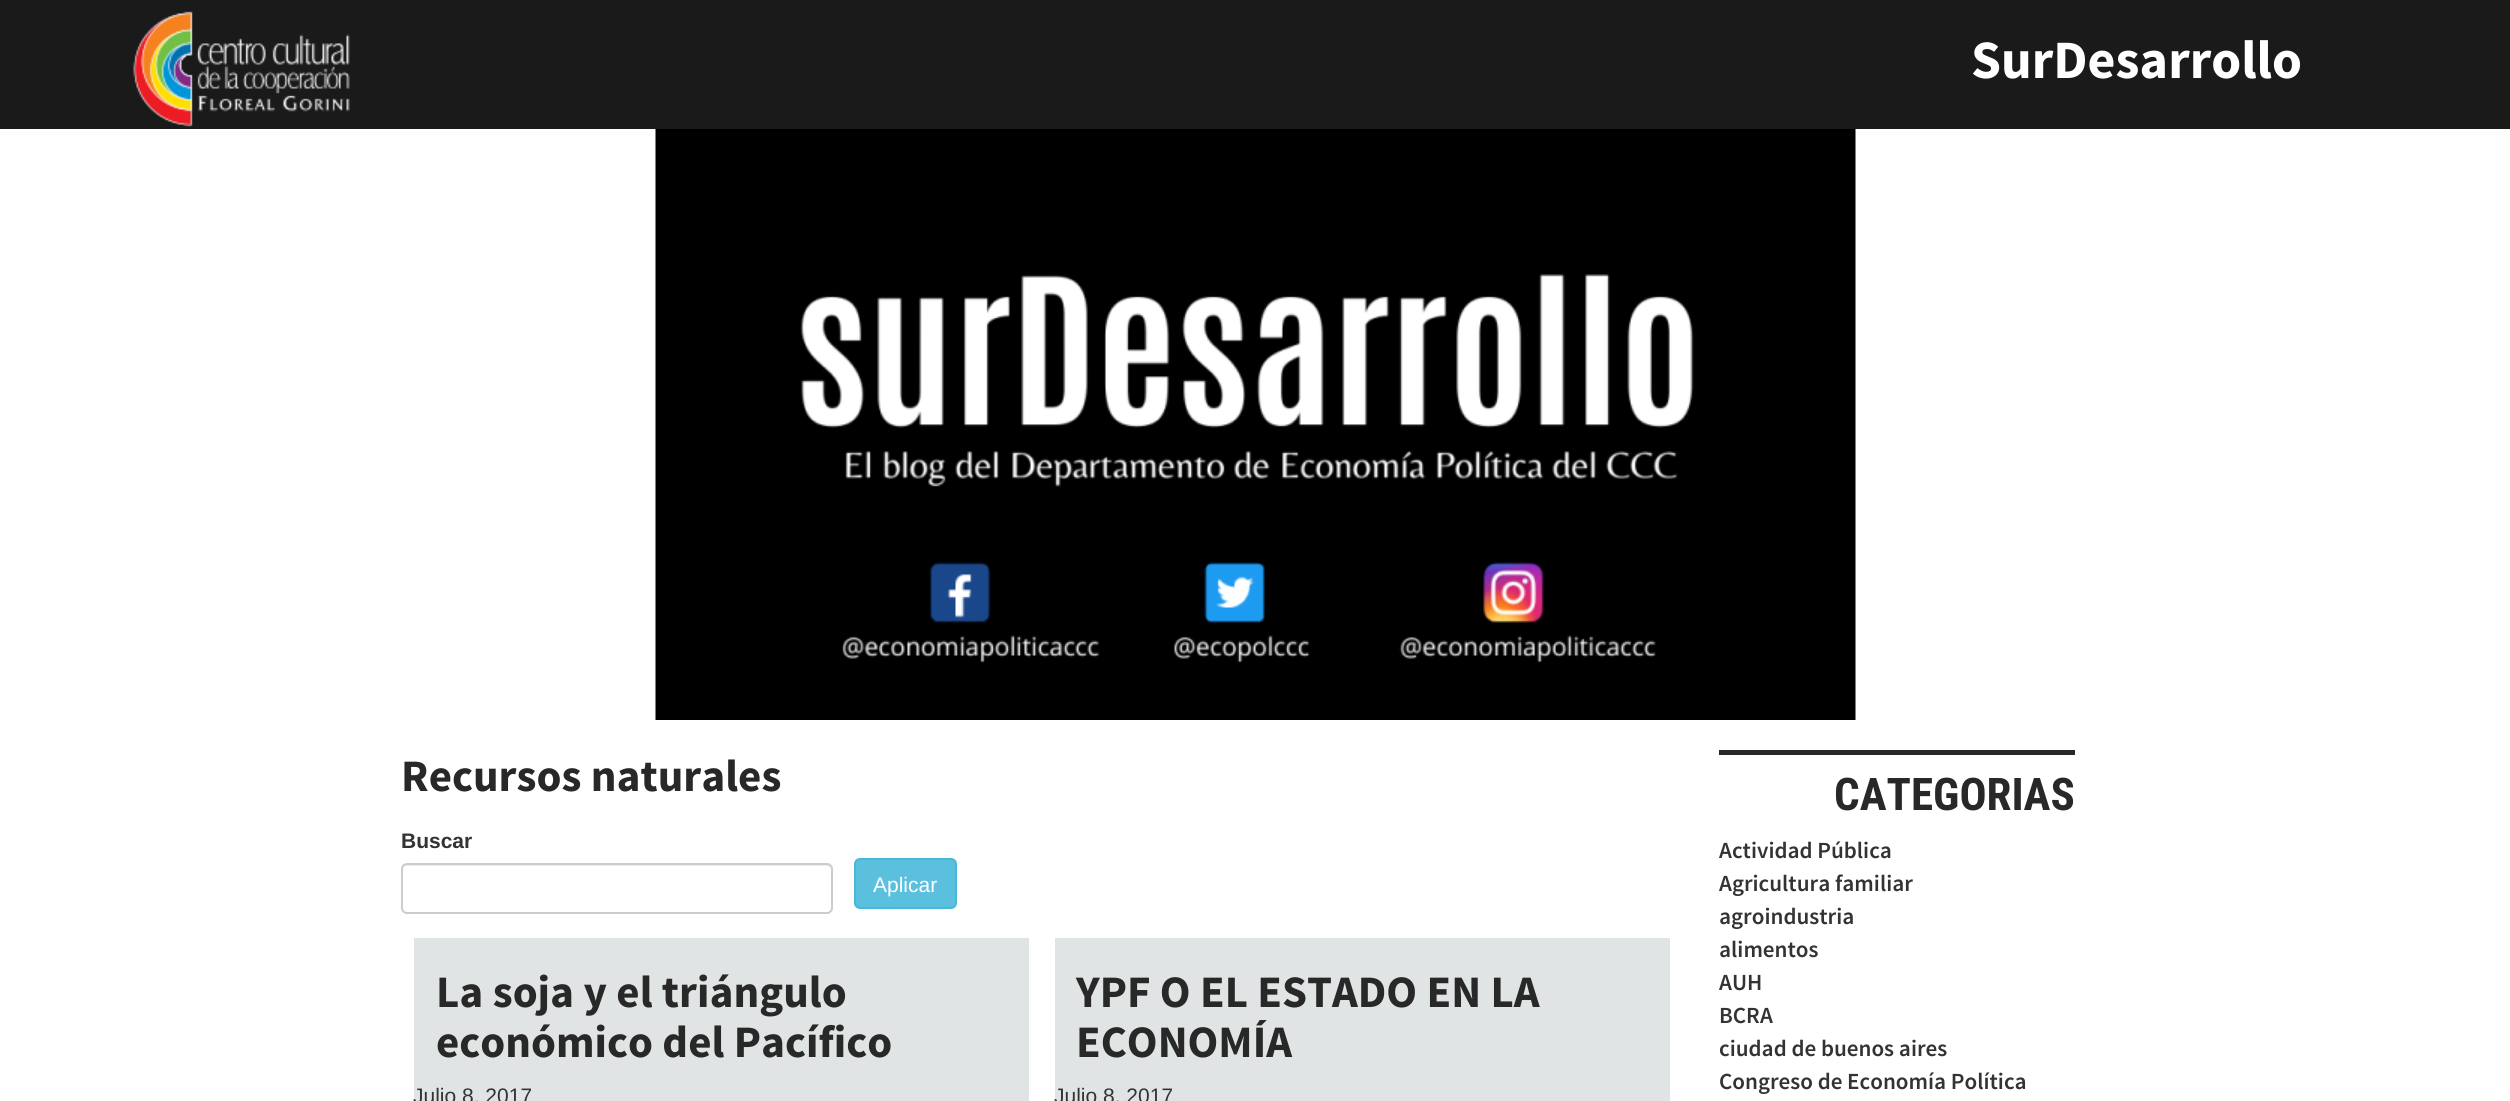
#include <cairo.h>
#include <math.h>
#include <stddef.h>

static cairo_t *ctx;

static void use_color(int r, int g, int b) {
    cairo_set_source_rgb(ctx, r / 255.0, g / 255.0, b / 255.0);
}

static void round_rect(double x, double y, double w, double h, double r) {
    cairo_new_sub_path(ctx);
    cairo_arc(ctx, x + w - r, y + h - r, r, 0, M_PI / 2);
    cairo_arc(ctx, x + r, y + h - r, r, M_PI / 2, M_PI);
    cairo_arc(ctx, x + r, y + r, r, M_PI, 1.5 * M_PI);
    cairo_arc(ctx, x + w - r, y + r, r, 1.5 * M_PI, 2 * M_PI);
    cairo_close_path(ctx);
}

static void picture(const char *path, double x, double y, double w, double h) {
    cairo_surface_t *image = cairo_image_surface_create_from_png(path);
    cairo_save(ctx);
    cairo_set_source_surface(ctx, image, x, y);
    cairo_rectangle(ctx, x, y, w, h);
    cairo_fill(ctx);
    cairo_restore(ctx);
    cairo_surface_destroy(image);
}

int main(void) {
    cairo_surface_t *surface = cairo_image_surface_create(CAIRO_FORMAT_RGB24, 2510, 1101);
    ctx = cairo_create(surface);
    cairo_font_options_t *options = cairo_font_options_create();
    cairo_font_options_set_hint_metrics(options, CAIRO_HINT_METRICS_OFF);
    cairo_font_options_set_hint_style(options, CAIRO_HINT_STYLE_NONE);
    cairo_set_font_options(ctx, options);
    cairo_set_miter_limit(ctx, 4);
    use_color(255, 255, 255);
    cairo_paint(ctx);
    use_color(26, 26, 26);
    cairo_rectangle(ctx, 0, 0, 2510, 129);
    cairo_fill(ctx);
    picture("img1.png", 133, 11, 217, 116);
    cairo_select_font_face(ctx, "Source Sans Pro", CAIRO_FONT_SLANT_NORMAL, CAIRO_FONT_WEIGHT_BOLD);
    cairo_set_font_size(ctx, 54);
    use_color(255, 255, 255);
    cairo_move_to(ctx, 1971, 78);
    cairo_show_text(ctx, "SurDesarrollo");
    picture("img2.png", 655, 129, 1201, 591);
    cairo_set_font_size(ctx, 45);
    use_color(40, 40, 40);
    cairo_move_to(ctx, 401, 791);
    cairo_show_text(ctx, "Recursos naturales");
    cairo_select_font_face(ctx, "Liberation Sans", CAIRO_FONT_SLANT_NORMAL, CAIRO_FONT_WEIGHT_BOLD);
    cairo_set_font_size(ctx, 21);
    use_color(51, 51, 51);
    cairo_move_to(ctx, 401, 848);
    cairo_show_text(ctx, "Buscar");
    use_color(236, 236, 236);
    cairo_new_path(ctx);
    cairo_move_to(ctx, 406, 866);
    cairo_line_to(ctx, 826, 866);
    cairo_curve_to(ctx, 829, 866, 831, 868, 831, 870);
    cairo_curve_to(ctx, 831, 867, 829, 864, 826, 864);
    cairo_line_to(ctx, 407, 864);
    cairo_curve_to(ctx, 404, 864, 402, 867, 402, 870);
    cairo_curve_to(ctx, 402, 868, 404, 866, 406, 866);
    cairo_close_path(ctx);
    cairo_fill(ctx);
    round_rect(402, 864, 430, 49, 5);
    use_color(204, 204, 204);
    cairo_stroke(ctx);
    use_color(91, 192, 222);
    round_rect(855, 859, 101, 49, 5);
    cairo_fill_preserve(ctx);
    use_color(70, 184, 218);
    cairo_stroke(ctx);
    cairo_select_font_face(ctx, "Liberation Sans", CAIRO_FONT_SLANT_NORMAL, CAIRO_FONT_WEIGHT_NORMAL);
    use_color(255, 255, 255);
    cairo_move_to(ctx, 873, 892);
    cairo_show_text(ctx, "Aplicar");
    use_color(225, 228, 228);
    cairo_rectangle(ctx, 414, 938, 615, 163);
    cairo_fill(ctx);
    cairo_select_font_face(ctx, "Source Sans Pro", CAIRO_FONT_SLANT_NORMAL, CAIRO_FONT_WEIGHT_BOLD);
    cairo_set_font_size(ctx, 45);
    use_color(40, 40, 40);
    cairo_move_to(ctx, 436, 1007);
    cairo_show_text(ctx, "La soja y el triángulo");
    cairo_move_to(ctx, 436, 1057);
    cairo_show_text(ctx, "económico del Pacífico");
    cairo_select_font_face(ctx, "Liberation Sans", CAIRO_FONT_SLANT_NORMAL, CAIRO_FONT_WEIGHT_NORMAL);
    cairo_set_font_size(ctx, 21);
    use_color(51, 51, 51);
    cairo_move_to(ctx, 413, 1103);
    cairo_show_text(ctx, "Julio 8, 2017");
    use_color(225, 228, 228);
    cairo_rectangle(ctx, 1055, 938, 615, 163);
    cairo_fill(ctx);
    cairo_select_font_face(ctx, "Source Sans Pro", CAIRO_FONT_SLANT_NORMAL, CAIRO_FONT_WEIGHT_BOLD);
    cairo_set_font_size(ctx, 45);
    use_color(40, 40, 40);
    cairo_move_to(ctx, 1076, 1007);
    cairo_show_text(ctx, "YPF O EL ESTADO EN LA");
    cairo_move_to(ctx, 1076, 1057);
    cairo_show_text(ctx, "ECONOMÍA");
    cairo_select_font_face(ctx, "Liberation Sans", CAIRO_FONT_SLANT_NORMAL, CAIRO_FONT_WEIGHT_NORMAL);
    cairo_set_font_size(ctx, 21);
    use_color(51, 51, 51);
    cairo_move_to(ctx, 1054, 1103);
    cairo_show_text(ctx, "Julio 8, 2017");
    use_color(40, 40, 40);
    cairo_rectangle(ctx, 1719, 750, 356, 5);
    cairo_fill(ctx);
    cairo_select_font_face(ctx, "Roboto Condensed", CAIRO_FONT_SLANT_NORMAL, CAIRO_FONT_WEIGHT_BOLD);
    cairo_set_font_size(ctx, 45);
    cairo_move_to(ctx, 1834, 810);
    cairo_show_text(ctx, "CATEGORIAS");
    cairo_select_font_face(ctx, "Source Sans Pro SemiBold", CAIRO_FONT_SLANT_NORMAL, CAIRO_FONT_WEIGHT_NORMAL);
    cairo_set_font_size(ctx, 23.1);
    use_color(51, 51, 51);
    cairo_move_to(ctx, 1719, 858);
    cairo_show_text(ctx, "Actividad Pública");
    cairo_move_to(ctx, 1719, 891);
    cairo_show_text(ctx, "Agricultura familiar");
    cairo_move_to(ctx, 1719, 924);
    cairo_show_text(ctx, "agroindustria");
    cairo_move_to(ctx, 1719, 957);
    cairo_show_text(ctx, "alimentos");
    cairo_move_to(ctx, 1719, 990);
    cairo_show_text(ctx, "AUH");
    cairo_move_to(ctx, 1719, 1023);
    cairo_show_text(ctx, "BCRA");
    cairo_move_to(ctx, 1719, 1056);
    cairo_show_text(ctx, "ciudad de buenos aires");
    cairo_move_to(ctx, 1719, 1089);
    cairo_show_text(ctx, "Congreso de Economía Política");
    cairo_surface_write_to_png(surface, "result.png");
    cairo_font_options_destroy(options);
    cairo_destroy(ctx);
    cairo_surface_destroy(surface);
    return 0;
}
